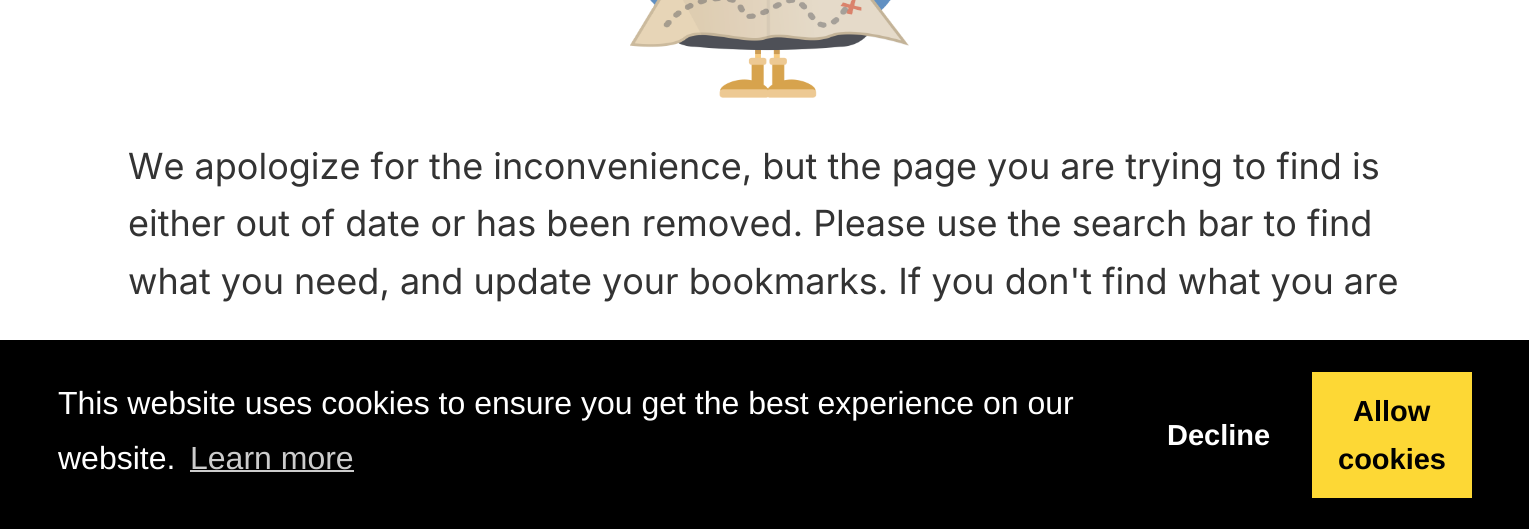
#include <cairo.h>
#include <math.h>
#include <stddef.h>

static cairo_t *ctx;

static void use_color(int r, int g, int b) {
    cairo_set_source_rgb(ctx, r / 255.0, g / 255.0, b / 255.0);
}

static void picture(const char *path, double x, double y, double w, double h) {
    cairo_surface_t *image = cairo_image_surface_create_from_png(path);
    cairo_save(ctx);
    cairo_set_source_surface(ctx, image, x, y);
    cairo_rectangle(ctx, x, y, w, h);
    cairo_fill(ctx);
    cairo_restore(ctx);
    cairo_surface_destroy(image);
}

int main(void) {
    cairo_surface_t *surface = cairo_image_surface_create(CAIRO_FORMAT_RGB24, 1529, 529);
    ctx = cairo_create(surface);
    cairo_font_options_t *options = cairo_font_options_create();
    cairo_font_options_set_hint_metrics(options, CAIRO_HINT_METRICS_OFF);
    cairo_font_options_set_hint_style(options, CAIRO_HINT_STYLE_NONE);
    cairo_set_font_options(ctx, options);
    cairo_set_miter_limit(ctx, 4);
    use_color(255, 255, 255);
    cairo_paint(ctx);
    picture("img1.png", 630, 0, 279, 98);
    cairo_select_font_face(ctx, "Inter", CAIRO_FONT_SLANT_NORMAL, CAIRO_FONT_WEIGHT_NORMAL);
    cairo_set_font_size(ctx, 36);
    use_color(51, 51, 51);
    cairo_move_to(ctx, 128, 179);
    cairo_show_text(ctx, "We apologize for the inconvenience, but the page you are trying to find is");
    cairo_move_to(ctx, 128, 236);
    cairo_show_text(ctx, "either out of date or has been removed. Please use the search bar to find");
    cairo_move_to(ctx, 128, 294);
    cairo_show_text(ctx, "what you need, and update your bookmarks. If you don't find what you are");
    use_color(0, 0, 0);
    cairo_rectangle(ctx, 0, 340, 1529, 189);
    cairo_fill(ctx);
    cairo_select_font_face(ctx, "Liberation Sans", CAIRO_FONT_SLANT_NORMAL, CAIRO_FONT_WEIGHT_NORMAL);
    cairo_set_font_size(ctx, 32);
    use_color(255, 255, 255);
    cairo_move_to(ctx, 58, 414);
    cairo_show_text(ctx, "This website uses cookies to ensure you get the best experience on our");
    cairo_move_to(ctx, 58, 469);
    cairo_show_text(ctx, "website.");
    use_color(204, 204, 204);
    cairo_move_to(ctx, 190, 469);
    cairo_show_text(ctx, "Learn more");
    cairo_rectangle(ctx, 190, 470, 164, 2);
    cairo_fill(ctx);
    cairo_select_font_face(ctx, "Liberation Sans", CAIRO_FONT_SLANT_NORMAL, CAIRO_FONT_WEIGHT_BOLD);
    cairo_set_font_size(ctx, 29);
    use_color(255, 255, 255);
    cairo_move_to(ctx, 1167, 445);
    cairo_show_text(ctx, "Decline");
    use_color(253, 216, 53);
    cairo_rectangle(ctx, 1312, 372, 160, 126);
    cairo_fill(ctx);
    use_color(0, 0, 0);
    cairo_move_to(ctx, 1353, 421);
    cairo_show_text(ctx, "Allow");
    cairo_move_to(ctx, 1338, 469);
    cairo_show_text(ctx, "cookies");
    cairo_surface_write_to_png(surface, "result.png");
    cairo_font_options_destroy(options);
    cairo_destroy(ctx);
    cairo_surface_destroy(surface);
    return 0;
}
